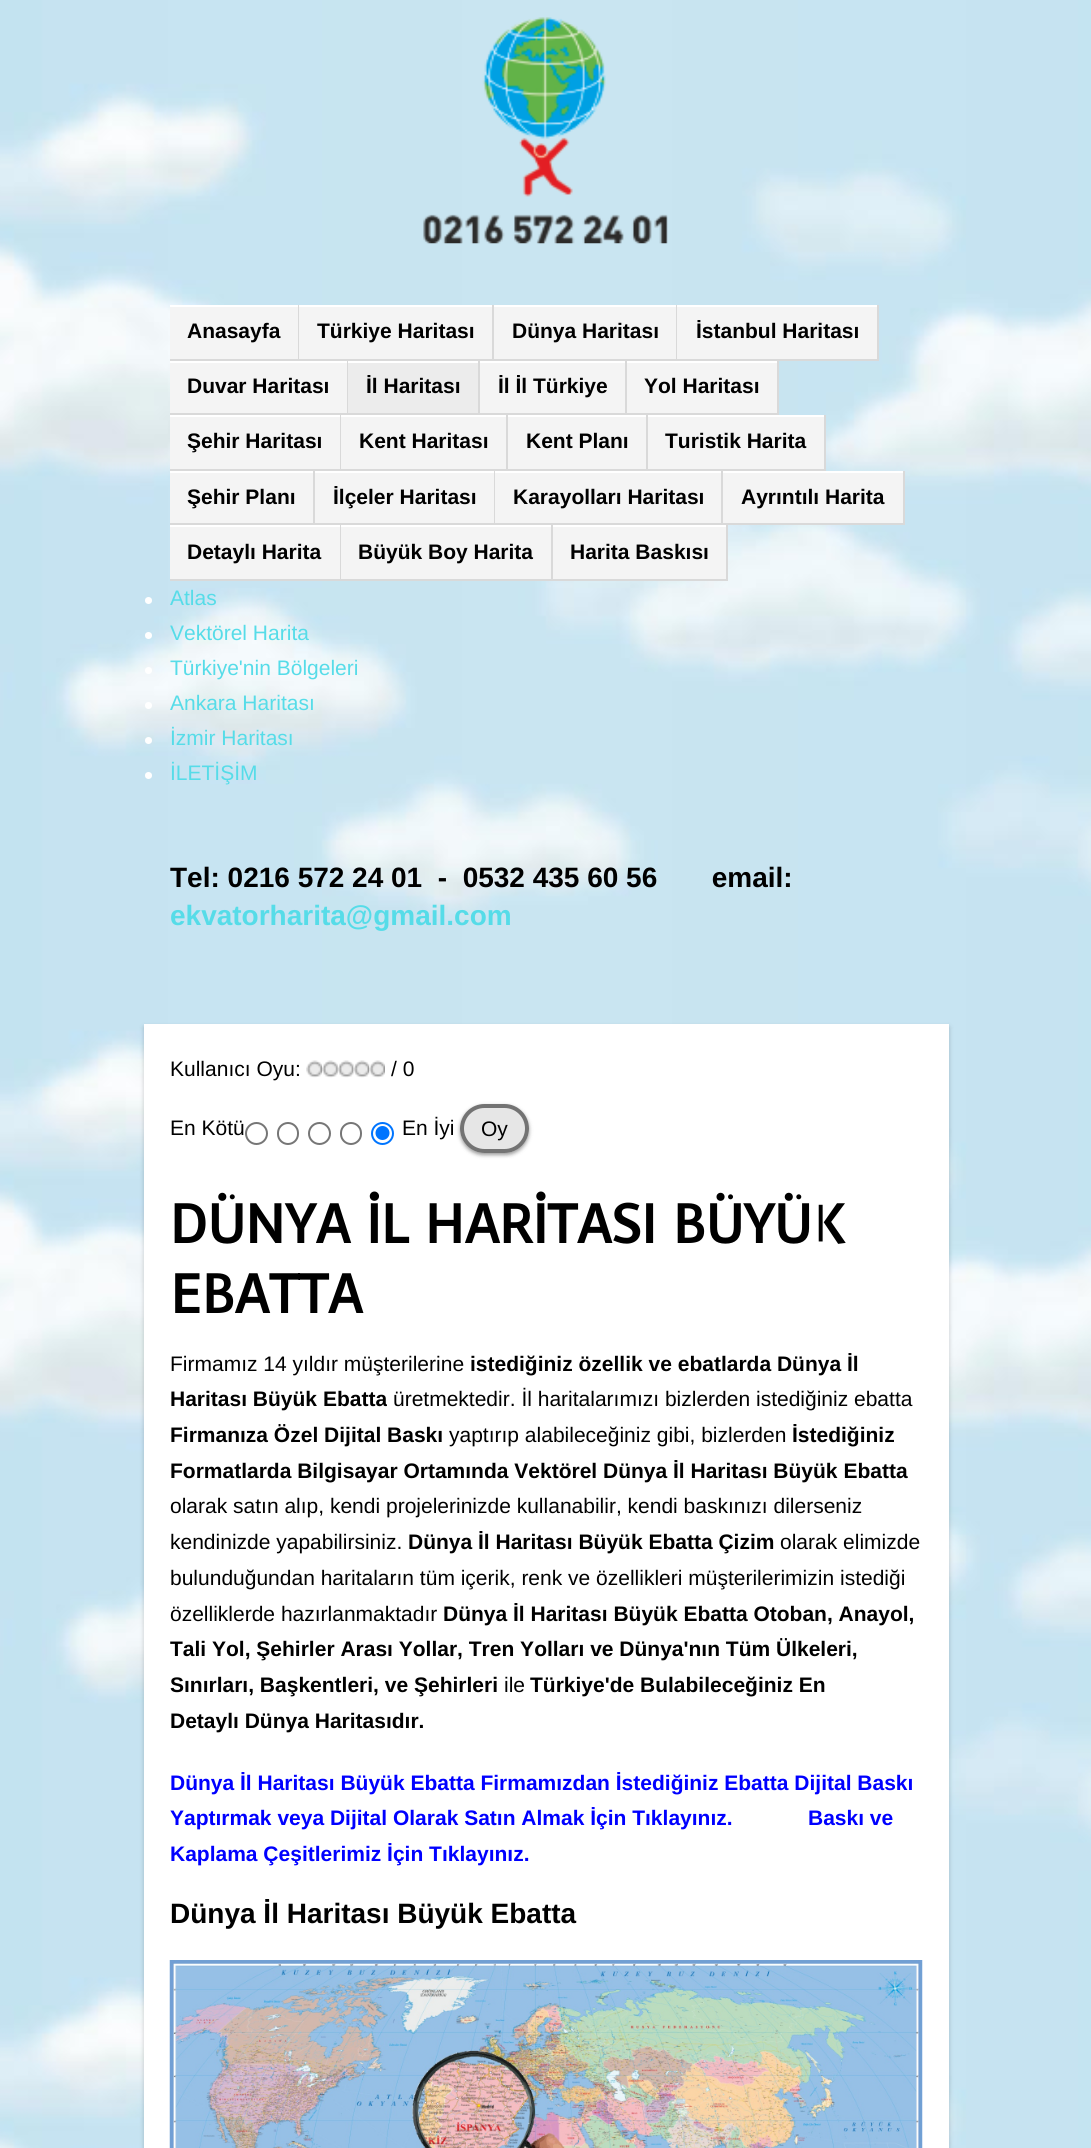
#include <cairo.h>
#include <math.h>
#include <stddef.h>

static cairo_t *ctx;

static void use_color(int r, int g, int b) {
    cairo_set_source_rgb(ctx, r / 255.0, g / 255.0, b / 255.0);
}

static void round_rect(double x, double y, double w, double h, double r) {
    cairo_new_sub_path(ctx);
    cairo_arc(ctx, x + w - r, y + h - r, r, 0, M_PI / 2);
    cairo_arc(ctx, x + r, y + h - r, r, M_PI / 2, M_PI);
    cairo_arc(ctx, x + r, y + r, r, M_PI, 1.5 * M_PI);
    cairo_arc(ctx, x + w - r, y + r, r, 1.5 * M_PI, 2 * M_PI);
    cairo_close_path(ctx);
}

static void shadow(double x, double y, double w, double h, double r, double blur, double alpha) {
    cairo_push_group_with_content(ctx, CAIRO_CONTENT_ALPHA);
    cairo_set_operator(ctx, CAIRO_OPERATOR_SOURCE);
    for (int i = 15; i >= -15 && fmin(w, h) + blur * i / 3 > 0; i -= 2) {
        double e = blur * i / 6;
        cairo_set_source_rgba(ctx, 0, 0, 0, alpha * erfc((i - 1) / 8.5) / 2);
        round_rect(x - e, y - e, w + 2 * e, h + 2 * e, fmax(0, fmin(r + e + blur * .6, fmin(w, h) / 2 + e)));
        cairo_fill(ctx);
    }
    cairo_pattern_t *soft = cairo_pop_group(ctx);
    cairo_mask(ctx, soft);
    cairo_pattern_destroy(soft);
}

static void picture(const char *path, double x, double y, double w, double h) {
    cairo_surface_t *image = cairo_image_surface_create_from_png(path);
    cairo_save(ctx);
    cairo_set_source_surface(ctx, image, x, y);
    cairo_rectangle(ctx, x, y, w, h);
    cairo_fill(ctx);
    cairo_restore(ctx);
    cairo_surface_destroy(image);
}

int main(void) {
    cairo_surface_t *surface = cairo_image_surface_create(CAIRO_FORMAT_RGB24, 1091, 2148);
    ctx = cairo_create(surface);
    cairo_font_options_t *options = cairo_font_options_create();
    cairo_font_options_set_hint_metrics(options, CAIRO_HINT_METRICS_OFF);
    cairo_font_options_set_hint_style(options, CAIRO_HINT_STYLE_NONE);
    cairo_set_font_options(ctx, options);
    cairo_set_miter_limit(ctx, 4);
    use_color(255, 255, 255);
    cairo_paint(ctx);
    picture("img1.png", 0, 0, 1091, 2148);
    picture("img2.png", 423, 17, 245, 227);
    use_color(244, 244, 244);
    cairo_rectangle(ctx, 170, 307, 128, 52);
    cairo_fill(ctx);
    use_color(255, 255, 255);
    cairo_rectangle(ctx, 170, 305, 709, 2);
    cairo_fill(ctx);
    use_color(217, 217, 217);
    cairo_rectangle(ctx, 298, 305, 1, 56);
    cairo_fill(ctx);
    cairo_rectangle(ctx, 170, 359, 129, 2);
    cairo_fill(ctx);
    cairo_select_font_face(ctx, "Liberation Sans", CAIRO_FONT_SLANT_NORMAL, CAIRO_FONT_WEIGHT_BOLD);
    cairo_set_font_size(ctx, 21);
    use_color(0, 0, 0);
    cairo_move_to(ctx, 187, 338);
    cairo_show_text(ctx, "Anasayfa");
    use_color(244, 244, 244);
    cairo_rectangle(ctx, 299, 307, 193, 52);
    cairo_fill(ctx);
    use_color(217, 217, 217);
    cairo_rectangle(ctx, 492, 305, 2, 56);
    cairo_fill(ctx);
    cairo_rectangle(ctx, 299, 359, 195, 2);
    cairo_fill(ctx);
    use_color(0, 0, 0);
    cairo_move_to(ctx, 317, 338);
    cairo_show_text(ctx, "Türkiye Haritası");
    use_color(244, 244, 244);
    cairo_rectangle(ctx, 494, 307, 182, 52);
    cairo_fill(ctx);
    use_color(217, 217, 217);
    cairo_rectangle(ctx, 676, 305, 1, 56);
    cairo_fill(ctx);
    cairo_rectangle(ctx, 494, 359, 183, 2);
    cairo_fill(ctx);
    use_color(0, 0, 0);
    cairo_move_to(ctx, 512, 338);
    cairo_show_text(ctx, "Dünya Haritası");
    use_color(244, 244, 244);
    cairo_rectangle(ctx, 677, 307, 200, 52);
    cairo_fill(ctx);
    use_color(217, 217, 217);
    cairo_rectangle(ctx, 877, 305, 2, 56);
    cairo_fill(ctx);
    cairo_rectangle(ctx, 677, 359, 202, 2);
    cairo_fill(ctx);
    use_color(0, 0, 0);
    cairo_move_to(ctx, 696, 338);
    cairo_show_text(ctx, "İstanbul Haritası");
    use_color(244, 244, 244);
    cairo_rectangle(ctx, 170, 363, 177, 50);
    cairo_fill(ctx);
    use_color(255, 255, 255);
    cairo_rectangle(ctx, 170, 361, 609, 2);
    cairo_fill(ctx);
    use_color(217, 217, 217);
    cairo_rectangle(ctx, 347, 361, 1, 54);
    cairo_fill(ctx);
    cairo_rectangle(ctx, 170, 413, 178, 2);
    cairo_fill(ctx);
    use_color(0, 0, 0);
    cairo_move_to(ctx, 187, 393);
    cairo_show_text(ctx, "Duvar Haritası");
    use_color(236, 236, 236);
    cairo_rectangle(ctx, 348, 363, 130, 50);
    cairo_fill(ctx);
    use_color(217, 217, 217);
    cairo_rectangle(ctx, 478, 361, 2, 54);
    cairo_fill(ctx);
    cairo_rectangle(ctx, 348, 413, 132, 2);
    cairo_fill(ctx);
    use_color(0, 0, 0);
    cairo_move_to(ctx, 366, 393);
    cairo_show_text(ctx, "İl Haritası");
    use_color(244, 244, 244);
    cairo_rectangle(ctx, 480, 363, 145, 50);
    cairo_fill(ctx);
    use_color(217, 217, 217);
    cairo_rectangle(ctx, 625, 361, 2, 54);
    cairo_fill(ctx);
    cairo_rectangle(ctx, 480, 413, 147, 2);
    cairo_fill(ctx);
    use_color(0, 0, 0);
    cairo_move_to(ctx, 498, 393);
    cairo_show_text(ctx, "İl İl Türkiye");
    use_color(244, 244, 244);
    cairo_rectangle(ctx, 627, 363, 150, 50);
    cairo_fill(ctx);
    use_color(217, 217, 217);
    cairo_rectangle(ctx, 777, 361, 2, 54);
    cairo_fill(ctx);
    cairo_rectangle(ctx, 627, 413, 152, 2);
    cairo_fill(ctx);
    use_color(0, 0, 0);
    cairo_move_to(ctx, 644, 393);
    cairo_show_text(ctx, "Yol Haritası");
    use_color(244, 244, 244);
    cairo_rectangle(ctx, 170, 417, 170, 52);
    cairo_fill(ctx);
    use_color(255, 255, 255);
    cairo_rectangle(ctx, 170, 415, 656, 2);
    cairo_fill(ctx);
    use_color(217, 217, 217);
    cairo_rectangle(ctx, 340, 415, 1, 56);
    cairo_fill(ctx);
    cairo_rectangle(ctx, 170, 469, 171, 2);
    cairo_fill(ctx);
    use_color(0, 0, 0);
    cairo_move_to(ctx, 187, 448);
    cairo_show_text(ctx, "Şehir Haritası");
    use_color(244, 244, 244);
    cairo_rectangle(ctx, 341, 417, 165, 52);
    cairo_fill(ctx);
    use_color(217, 217, 217);
    cairo_rectangle(ctx, 506, 415, 2, 56);
    cairo_fill(ctx);
    cairo_rectangle(ctx, 341, 469, 167, 2);
    cairo_fill(ctx);
    use_color(0, 0, 0);
    cairo_move_to(ctx, 359, 448);
    cairo_show_text(ctx, "Kent Haritası");
    use_color(244, 244, 244);
    cairo_rectangle(ctx, 508, 417, 138, 52);
    cairo_fill(ctx);
    use_color(217, 217, 217);
    cairo_rectangle(ctx, 646, 415, 2, 56);
    cairo_fill(ctx);
    cairo_rectangle(ctx, 508, 469, 140, 2);
    cairo_fill(ctx);
    use_color(0, 0, 0);
    cairo_move_to(ctx, 526, 448);
    cairo_show_text(ctx, "Kent Planı");
    use_color(244, 244, 244);
    cairo_rectangle(ctx, 648, 417, 176, 52);
    cairo_fill(ctx);
    use_color(217, 217, 217);
    cairo_rectangle(ctx, 824, 415, 2, 56);
    cairo_fill(ctx);
    cairo_rectangle(ctx, 648, 469, 178, 2);
    cairo_fill(ctx);
    use_color(0, 0, 0);
    cairo_move_to(ctx, 665, 448);
    cairo_show_text(ctx, "Turistik Harita");
    use_color(244, 244, 244);
    cairo_rectangle(ctx, 170, 473, 143, 50);
    cairo_fill(ctx);
    use_color(255, 255, 255);
    cairo_rectangle(ctx, 170, 471, 735, 2);
    cairo_fill(ctx);
    use_color(217, 217, 217);
    cairo_rectangle(ctx, 313, 471, 2, 54);
    cairo_fill(ctx);
    cairo_rectangle(ctx, 170, 523, 145, 2);
    cairo_fill(ctx);
    use_color(0, 0, 0);
    cairo_move_to(ctx, 187, 504);
    cairo_show_text(ctx, "Şehir Planı");
    use_color(244, 244, 244);
    cairo_rectangle(ctx, 315, 473, 179, 50);
    cairo_fill(ctx);
    use_color(217, 217, 217);
    cairo_rectangle(ctx, 494, 471, 1, 54);
    cairo_fill(ctx);
    cairo_rectangle(ctx, 315, 523, 180, 2);
    cairo_fill(ctx);
    use_color(0, 0, 0);
    cairo_move_to(ctx, 333, 504);
    cairo_show_text(ctx, "İlçeler Haritası");
    use_color(244, 244, 244);
    cairo_rectangle(ctx, 495, 473, 226, 50);
    cairo_fill(ctx);
    use_color(217, 217, 217);
    cairo_rectangle(ctx, 721, 471, 2, 54);
    cairo_fill(ctx);
    cairo_rectangle(ctx, 495, 523, 228, 2);
    cairo_fill(ctx);
    use_color(0, 0, 0);
    cairo_move_to(ctx, 513, 504);
    cairo_show_text(ctx, "Karayolları Haritası");
    use_color(244, 244, 244);
    cairo_rectangle(ctx, 723, 473, 180, 50);
    cairo_fill(ctx);
    use_color(217, 217, 217);
    cairo_rectangle(ctx, 903, 471, 2, 54);
    cairo_fill(ctx);
    cairo_rectangle(ctx, 723, 523, 182, 2);
    cairo_fill(ctx);
    use_color(0, 0, 0);
    cairo_move_to(ctx, 741, 504);
    cairo_show_text(ctx, "Ayrıntılı Harita");
    use_color(244, 244, 244);
    cairo_rectangle(ctx, 170, 527, 170, 52);
    cairo_fill(ctx);
    use_color(255, 255, 255);
    cairo_rectangle(ctx, 170, 525, 558, 2);
    cairo_fill(ctx);
    use_color(217, 217, 217);
    cairo_rectangle(ctx, 340, 525, 1, 56);
    cairo_fill(ctx);
    cairo_rectangle(ctx, 170, 579, 171, 2);
    cairo_fill(ctx);
    use_color(0, 0, 0);
    cairo_move_to(ctx, 187, 559);
    cairo_show_text(ctx, "Detaylı Harita");
    use_color(244, 244, 244);
    cairo_rectangle(ctx, 341, 527, 210, 52);
    cairo_fill(ctx);
    use_color(217, 217, 217);
    cairo_rectangle(ctx, 551, 525, 2, 56);
    cairo_fill(ctx);
    cairo_rectangle(ctx, 341, 579, 212, 2);
    cairo_fill(ctx);
    use_color(0, 0, 0);
    cairo_move_to(ctx, 358, 559);
    cairo_show_text(ctx, "Büyük Boy Harita");
    use_color(244, 244, 244);
    cairo_rectangle(ctx, 553, 527, 173, 52);
    cairo_fill(ctx);
    use_color(217, 217, 217);
    cairo_rectangle(ctx, 726, 525, 2, 56);
    cairo_fill(ctx);
    cairo_rectangle(ctx, 553, 579, 175, 2);
    cairo_fill(ctx);
    use_color(0, 0, 0);
    cairo_move_to(ctx, 570, 559);
    cairo_show_text(ctx, "Harita Baskısı");
    use_color(255, 255, 255);
    cairo_new_path(ctx);
    cairo_arc(ctx, 148.5, 600.5, 3.5, 0, 2 * M_PI);
    cairo_fill(ctx);
    cairo_select_font_face(ctx, "Liberation Sans", CAIRO_FONT_SLANT_NORMAL, CAIRO_FONT_WEIGHT_NORMAL);
    use_color(86, 220, 232);
    cairo_move_to(ctx, 170, 605);
    cairo_show_text(ctx, "Atlas");
    use_color(255, 255, 255);
    cairo_new_path(ctx);
    cairo_arc(ctx, 148.5, 635.5, 3.5, 0, 2 * M_PI);
    cairo_fill(ctx);
    use_color(86, 220, 232);
    cairo_move_to(ctx, 170, 640);
    cairo_show_text(ctx, "Vektörel Harita");
    use_color(255, 255, 255);
    cairo_new_path(ctx);
    cairo_arc(ctx, 148.5, 670.5, 3.5, 0, 2 * M_PI);
    cairo_fill(ctx);
    use_color(86, 220, 232);
    cairo_move_to(ctx, 170, 675);
    cairo_show_text(ctx, "Türkiye'nin Bölgeleri");
    use_color(255, 255, 255);
    cairo_new_path(ctx);
    cairo_arc(ctx, 148.5, 705.5, 3.5, 0, 2 * M_PI);
    cairo_fill(ctx);
    use_color(86, 220, 232);
    cairo_move_to(ctx, 170, 710);
    cairo_show_text(ctx, "Ankara Haritası");
    use_color(255, 255, 255);
    cairo_new_path(ctx);
    cairo_arc(ctx, 148.5, 740.5, 3.5, 0, 2 * M_PI);
    cairo_fill(ctx);
    use_color(86, 220, 232);
    cairo_move_to(ctx, 170, 745);
    cairo_show_text(ctx, "İzmir Haritası");
    use_color(255, 255, 255);
    cairo_new_path(ctx);
    cairo_arc(ctx, 148.5, 775.5, 3.5, 0, 2 * M_PI);
    cairo_fill(ctx);
    use_color(86, 220, 232);
    cairo_move_to(ctx, 170, 780);
    cairo_show_text(ctx, "İLETİŞİM");
    cairo_select_font_face(ctx, "Liberation Sans", CAIRO_FONT_SLANT_NORMAL, CAIRO_FONT_WEIGHT_BOLD);
    cairo_set_font_size(ctx, 28);
    use_color(0, 0, 0);
    cairo_move_to(ctx, 170, 887);
    cairo_show_text(ctx, "Tel: 0216 572 24 01  -  0532 435 60 56       email:");
    use_color(86, 220, 232);
    cairo_move_to(ctx, 170, 925);
    cairo_show_text(ctx, "ekvatorharita@gmail.com");
    use_color(0, 0, 0);
    shadow(144, 1027, 805, 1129, 0, 2.5, 0.2);
    use_color(255, 255, 255);
    cairo_rectangle(ctx, 144, 1024, 805, 1124);
    cairo_fill(ctx);
    cairo_select_font_face(ctx, "Liberation Sans", CAIRO_FONT_SLANT_NORMAL, CAIRO_FONT_WEIGHT_NORMAL);
    cairo_set_font_size(ctx, 21);
    use_color(0, 0, 0);
    cairo_move_to(ctx, 170, 1076);
    cairo_show_text(ctx, "Kullanıcı Oyu:");
    picture("img3.png", 306, 1060, 16, 18);
    picture("img4.png", 322, 1060, 16, 18);
    picture("img5.png", 337, 1060, 17, 18);
    picture("img6.png", 353, 1060, 17, 18);
    picture("img7.png", 369, 1060, 16, 18);
    cairo_move_to(ctx, 391, 1076);
    cairo_show_text(ctx, "/ 0");
    cairo_move_to(ctx, 170, 1135);
    cairo_show_text(ctx, "En Kötü");
    cairo_new_path(ctx);
    cairo_arc(ctx, 256.5, 1133.5, 10.5, 0, 2 * M_PI);
    use_color(118, 118, 118);
    cairo_stroke(ctx);
    round_rect(278, 1123, 20, 21, 10);
    cairo_stroke(ctx);
    cairo_arc(ctx, 319.5, 1133.5, 10.5, 0, 2 * M_PI);
    cairo_stroke(ctx);
    round_rect(341, 1123, 20, 21, 10);
    cairo_stroke(ctx);
    cairo_arc(ctx, 382.5, 1133.5, 10.5, 0, 2 * M_PI);
    use_color(0, 117, 255);
    cairo_stroke(ctx);
    cairo_arc(ctx, 382.5, 1133, 7, 0, 2 * M_PI);
    cairo_fill(ctx);
    use_color(0, 0, 0);
    cairo_move_to(ctx, 402, 1135);
    cairo_show_text(ctx, "En İyi");
    cairo_save(ctx);
    cairo_set_fill_rule(ctx, CAIRO_FILL_RULE_EVEN_ODD);
    cairo_new_path(ctx);
    cairo_move_to(ctx, 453, 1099);
    cairo_line_to(ctx, 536, 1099);
    cairo_line_to(ctx, 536, 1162);
    cairo_line_to(ctx, 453, 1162);
    cairo_close_path(ctx);
    cairo_move_to(ctx, 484.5, 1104);
    cairo_line_to(ctx, 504.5, 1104);
    cairo_curve_to(ctx, 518, 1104, 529, 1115, 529, 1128.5);
    cairo_curve_to(ctx, 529, 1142, 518, 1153, 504.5, 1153);
    cairo_line_to(ctx, 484.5, 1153);
    cairo_curve_to(ctx, 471, 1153, 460, 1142, 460, 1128.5);
    cairo_curve_to(ctx, 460, 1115, 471, 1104, 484.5, 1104);
    cairo_close_path(ctx);
    cairo_clip(ctx);
    use_color(0, 0, 0);
    shadow(460, 1106, 69, 49, 24.5, 2, 0.4);
    cairo_restore(ctx);
    cairo_set_source_rgba(ctx, 0, 0, 0, 0.1);
    round_rect(460, 1104, 69, 49, 24.5);
    cairo_fill(ctx);
    round_rect(462, 1106, 65, 45, 22.5);
    cairo_set_source_rgba(ctx, 0, 0, 0, 0.5);
    cairo_set_line_width(ctx, 4);
    cairo_stroke(ctx);
    use_color(0, 0, 0);
    cairo_move_to(ctx, 481, 1136);
    cairo_show_text(ctx, "Oy");
    cairo_select_font_face(ctx, "Voces", CAIRO_FONT_SLANT_NORMAL, CAIRO_FONT_WEIGHT_BOLD);
    cairo_set_font_size(ctx, 54.6);
    cairo_move_to(ctx, 170, 1243);
    cairo_show_text(ctx, "DÜNYA İL HARİTASI BÜYÜK");
    cairo_move_to(ctx, 170, 1313);
    cairo_show_text(ctx, "EBATTA");
    cairo_select_font_face(ctx, "Liberation Sans", CAIRO_FONT_SLANT_NORMAL, CAIRO_FONT_WEIGHT_NORMAL);
    cairo_set_font_size(ctx, 21);
    cairo_move_to(ctx, 170, 1371);
    cairo_show_text(ctx, "Firmamız 14 yıldır müşterilerine");
    cairo_select_font_face(ctx, "Liberation Sans", CAIRO_FONT_SLANT_NORMAL, CAIRO_FONT_WEIGHT_BOLD);
    cairo_move_to(ctx, 470, 1371);
    cairo_show_text(ctx, "istediğiniz özellik ve ebatlarda Dünya İl");
    cairo_move_to(ctx, 170, 1406);
    cairo_show_text(ctx, "Haritası Büyük Ebatta");
    cairo_select_font_face(ctx, "Liberation Sans", CAIRO_FONT_SLANT_NORMAL, CAIRO_FONT_WEIGHT_NORMAL);
    cairo_move_to(ctx, 393, 1406);
    cairo_show_text(ctx, "üretmektedir. İl haritalarımızı bizlerden istediğiniz ebatta");
    cairo_select_font_face(ctx, "Liberation Sans", CAIRO_FONT_SLANT_NORMAL, CAIRO_FONT_WEIGHT_BOLD);
    cairo_move_to(ctx, 170, 1442);
    cairo_show_text(ctx, "Firmanıza Özel Dijital Baskı");
    cairo_select_font_face(ctx, "Liberation Sans", CAIRO_FONT_SLANT_NORMAL, CAIRO_FONT_WEIGHT_NORMAL);
    cairo_move_to(ctx, 449, 1442);
    cairo_show_text(ctx, "yaptırıp alabileceğiniz gibi, bizlerden");
    cairo_select_font_face(ctx, "Liberation Sans", CAIRO_FONT_SLANT_NORMAL, CAIRO_FONT_WEIGHT_BOLD);
    cairo_move_to(ctx, 792, 1442);
    cairo_show_text(ctx, "İstediğiniz");
    cairo_move_to(ctx, 170, 1478);
    cairo_show_text(ctx, "Formatlarda Bilgisayar Ortamında Vektörel Dünya İl Haritası Büyük Ebatta");
    cairo_select_font_face(ctx, "Liberation Sans", CAIRO_FONT_SLANT_NORMAL, CAIRO_FONT_WEIGHT_NORMAL);
    cairo_move_to(ctx, 170, 1513);
    cairo_show_text(ctx, "olarak satın alıp, kendi projelerinizde kullanabilir, kendi baskınızı dilerseniz");
    cairo_move_to(ctx, 170, 1549);
    cairo_show_text(ctx, "kendinizde yapabilirsiniz.");
    cairo_select_font_face(ctx, "Liberation Sans", CAIRO_FONT_SLANT_NORMAL, CAIRO_FONT_WEIGHT_BOLD);
    cairo_move_to(ctx, 408, 1549);
    cairo_show_text(ctx, "Dünya İl Haritası Büyük Ebatta Çizim");
    cairo_select_font_face(ctx, "Liberation Sans", CAIRO_FONT_SLANT_NORMAL, CAIRO_FONT_WEIGHT_NORMAL);
    cairo_move_to(ctx, 780, 1549);
    cairo_show_text(ctx, "olarak elimizde");
    cairo_move_to(ctx, 170, 1585);
    cairo_show_text(ctx, "bulunduğundan haritaların tüm içerik, renk ve özellikleri müşterilerimizin istediği");
    cairo_move_to(ctx, 170, 1621);
    cairo_show_text(ctx, "özelliklerde hazırlanmaktadır");
    cairo_select_font_face(ctx, "Liberation Sans", CAIRO_FONT_SLANT_NORMAL, CAIRO_FONT_WEIGHT_BOLD);
    cairo_move_to(ctx, 443, 1621);
    cairo_show_text(ctx, "Dünya İl Haritası Büyük Ebatta Otoban, Anayol,");
    cairo_move_to(ctx, 170, 1656);
    cairo_show_text(ctx, "Tali Yol, Şehirler Arası Yollar, Tren Yolları ve Dünya'nın Tüm Ülkeleri,");
    cairo_move_to(ctx, 170, 1692);
    cairo_show_text(ctx, "Sınırları, Başkentleri, ve Şehirleri");
    cairo_select_font_face(ctx, "Liberation Sans", CAIRO_FONT_SLANT_NORMAL, CAIRO_FONT_WEIGHT_NORMAL);
    cairo_move_to(ctx, 504, 1692);
    cairo_show_text(ctx, "ile");
    cairo_select_font_face(ctx, "Liberation Sans", CAIRO_FONT_SLANT_NORMAL, CAIRO_FONT_WEIGHT_BOLD);
    cairo_move_to(ctx, 530, 1692);
    cairo_show_text(ctx, "Türkiye'de Bulabileceğiniz En");
    cairo_move_to(ctx, 170, 1728);
    cairo_show_text(ctx, "Detaylı Dünya Haritasıdır.");
    use_color(0, 0, 255);
    cairo_move_to(ctx, 170, 1790);
    cairo_show_text(ctx, "Dünya İl Haritası Büyük Ebatta Firmamızdan İstediğiniz Ebatta Dijital Baskı");
    cairo_move_to(ctx, 170, 1825);
    cairo_show_text(ctx, "Yaptırmak veya Dijital Olarak Satın Almak İçin Tıklayınız.");
    cairo_move_to(ctx, 808, 1825);
    cairo_show_text(ctx, "Baskı ve");
    cairo_move_to(ctx, 170, 1861);
    cairo_show_text(ctx, "Kaplama Çeşitlerimiz İçin Tıklayınız.");
    cairo_set_font_size(ctx, 28);
    use_color(0, 0, 0);
    cairo_move_to(ctx, 170, 1923);
    cairo_show_text(ctx, "Dünya İl Haritası Büyük Ebatta");
    picture("img8.png", 169, 1960, 754, 188);
    cairo_surface_write_to_png(surface, "result.png");
    cairo_font_options_destroy(options);
    cairo_destroy(ctx);
    cairo_surface_destroy(surface);
    return 0;
}
